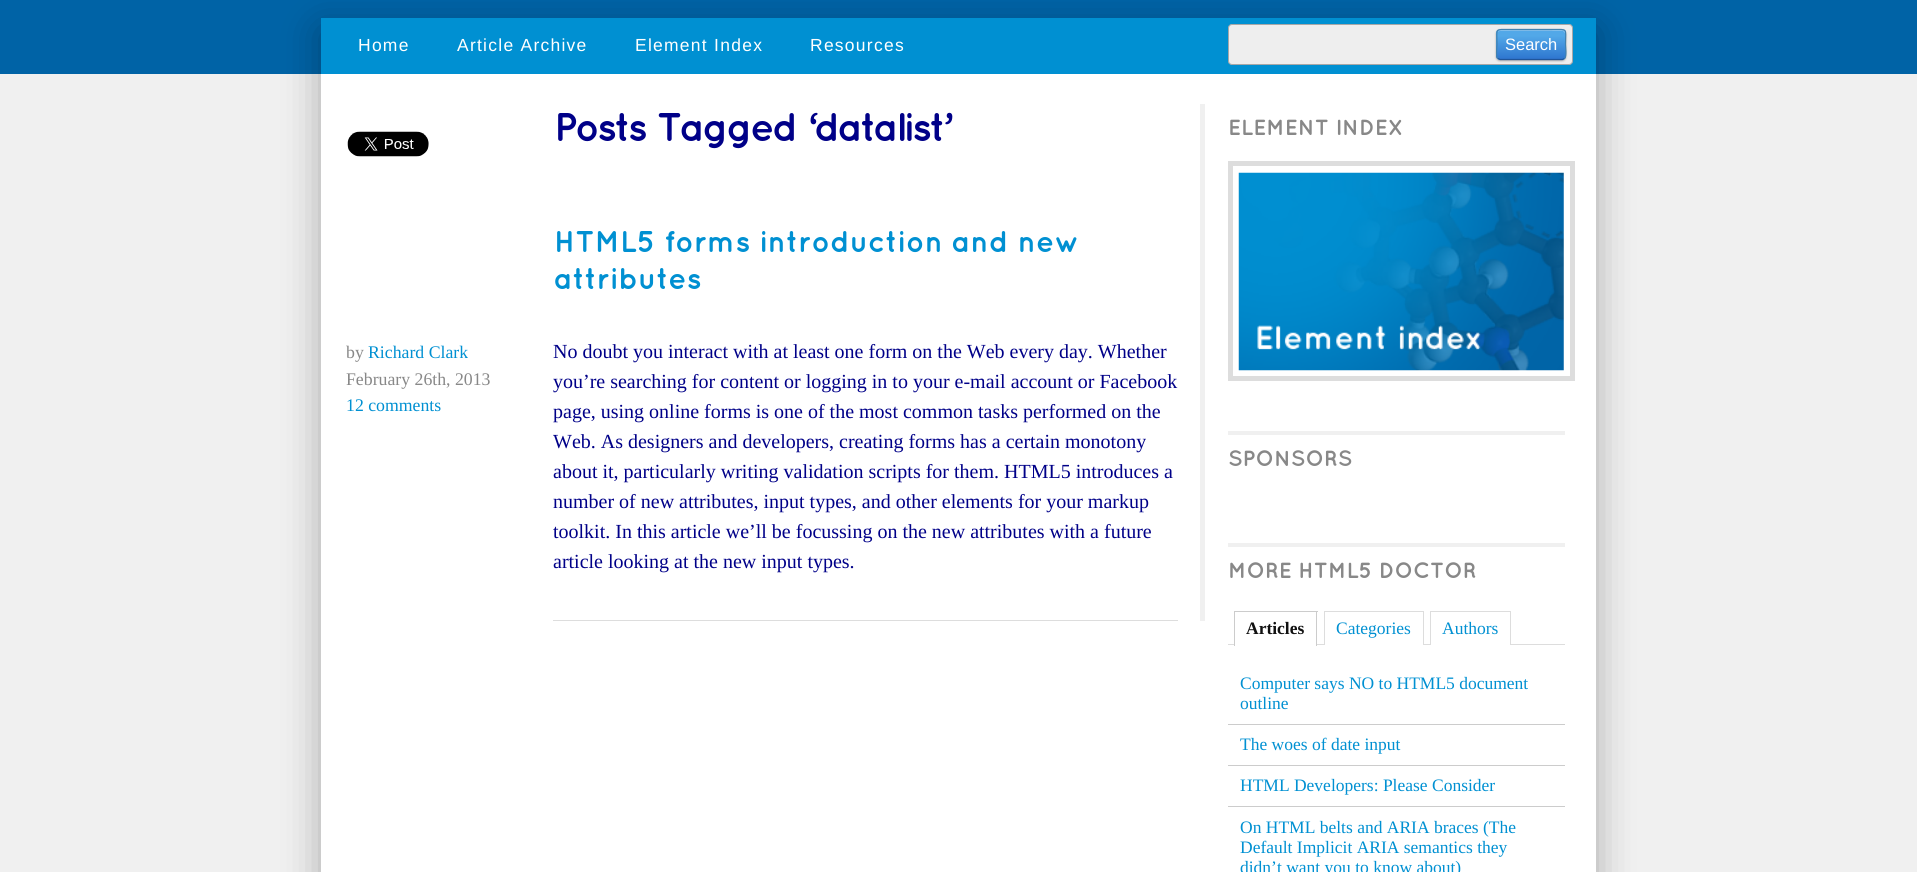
#include <cairo.h>
#include <math.h>
#include <stddef.h>

static cairo_t *ctx;

static void use_color(int r, int g, int b) {
    cairo_set_source_rgb(ctx, r / 255.0, g / 255.0, b / 255.0);
}

static void spaced_text(double x, double y, const char *s, double letter, double word) {
    cairo_move_to(ctx, x, y);
    while (*s) {
        char ch[5] = {0};
        int n = 0;
        do ch[n++] = *s++; while ((*s & 0xC0) == 0x80);
        cairo_show_text(ctx, ch);
        cairo_rel_move_to(ctx, letter + word * (*ch == ' '), 0);
    }
}

static void round_rect(double x, double y, double w, double h, double r) {
    cairo_new_sub_path(ctx);
    cairo_arc(ctx, x + w - r, y + h - r, r, 0, M_PI / 2);
    cairo_arc(ctx, x + r, y + h - r, r, M_PI / 2, M_PI);
    cairo_arc(ctx, x + r, y + r, r, M_PI, 1.5 * M_PI);
    cairo_arc(ctx, x + w - r, y + r, r, 1.5 * M_PI, 2 * M_PI);
    cairo_close_path(ctx);
}

static void shadow(double x, double y, double w, double h, double r, double blur, double alpha) {
    cairo_push_group_with_content(ctx, CAIRO_CONTENT_ALPHA);
    cairo_set_operator(ctx, CAIRO_OPERATOR_SOURCE);
    for (int i = 15; i >= -15 && fmin(w, h) + blur * i / 3 > 0; i -= 2) {
        double e = blur * i / 6;
        cairo_set_source_rgba(ctx, 0, 0, 0, alpha * erfc((i - 1) / 8.5) / 2);
        round_rect(x - e, y - e, w + 2 * e, h + 2 * e, fmax(0, fmin(r + e + blur * .6, fmin(w, h) / 2 + e)));
        cairo_fill(ctx);
    }
    cairo_pattern_t *soft = cairo_pop_group(ctx);
    cairo_mask(ctx, soft);
    cairo_pattern_destroy(soft);
}

static void picture(const char *path, double x, double y, double w, double h) {
    cairo_surface_t *image = cairo_image_surface_create_from_png(path);
    cairo_save(ctx);
    cairo_set_source_surface(ctx, image, x, y);
    cairo_rectangle(ctx, x, y, w, h);
    cairo_fill(ctx);
    cairo_restore(ctx);
    cairo_surface_destroy(image);
}

int main(void) {
    cairo_surface_t *surface = cairo_image_surface_create(CAIRO_FORMAT_RGB24, 1917, 872);
    ctx = cairo_create(surface);
    cairo_font_options_t *options = cairo_font_options_create();
    cairo_font_options_set_hint_metrics(options, CAIRO_HINT_METRICS_OFF);
    cairo_font_options_set_hint_style(options, CAIRO_HINT_STYLE_NONE);
    cairo_set_font_options(ctx, options);
    cairo_set_miter_limit(ctx, 4);
    cairo_pattern_t *gradient;
    use_color(240, 240, 240);
    cairo_paint(ctx);
    use_color(0, 99, 166);
    cairo_rectangle(ctx, 0, 0, 1917, 74);
    cairo_fill(ctx);
    use_color(0, 0, 0);
    shadow(321, 30, 1275, 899, 0, 19, 0.3);
    use_color(0, 144, 210);
    cairo_rectangle(ctx, 321, 18, 1275, 56);
    cairo_fill(ctx);
    cairo_select_font_face(ctx, "Liberation Sans", CAIRO_FONT_SLANT_NORMAL, CAIRO_FONT_WEIGHT_NORMAL);
    cairo_set_font_size(ctx, 17.5);
    use_color(255, 255, 255);
    spaced_text(358, 51, "Home", 1.25, 0);
    spaced_text(457, 51, "Article Archive", 1.25, 0);
    spaced_text(635, 51, "Element Index", 1.25, 0);
    spaced_text(810, 51, "Resources", 1.25, 0);
    use_color(238, 238, 238);
    round_rect(1228, 24, 345, 41, 4);
    cairo_fill(ctx);
    round_rect(1228.5, 24.5, 344, 40, 3.5);
    cairo_set_source_rgba(ctx, 0, 0, 0, 0.3);
    cairo_set_line_width(ctx, 1);
    cairo_stroke(ctx);
    use_color(0, 0, 0);
    shadow(1496, 30, 70, 31, 4, 1, 0.29);
    cairo_save(ctx);
    round_rect(1496, 29, 70, 31, 4);
    cairo_clip(ctx);
    gradient = cairo_pattern_create_linear(1498, 30, 1498, 59);
    cairo_pattern_add_color_stop_rgba(gradient, 0.2, 0.322, 0.659, 0.91, 1);
    cairo_pattern_add_color_stop_rgba(gradient, 1, 0.18, 0.463, 0.812, 1);
    cairo_set_source(ctx, gradient);
    cairo_pattern_destroy(gradient);
    cairo_rectangle(ctx, 1496, 30, 70, 29);
    cairo_fill(ctx);
    gradient = cairo_pattern_create_linear(1498, 59, 1498, 88);
    cairo_pattern_add_color_stop_rgba(gradient, 0.2, 0.322, 0.659, 0.91, 1);
    cairo_pattern_add_color_stop_rgba(gradient, 1, 0.18, 0.463, 0.812, 1);
    cairo_set_source(ctx, gradient);
    cairo_pattern_destroy(gradient);
    cairo_rectangle(ctx, 1496, 59, 70, 1);
    cairo_fill(ctx);
    cairo_restore(ctx);
    use_color(134, 194, 239);
    cairo_set_fill_rule(ctx, CAIRO_FILL_RULE_EVEN_ODD);
    cairo_new_path(ctx);
    cairo_move_to(ctx, 1500, 31);
    cairo_line_to(ctx, 1563, 31);
    cairo_line_to(ctx, 1565, 33);
    cairo_line_to(ctx, 1565, 32);
    cairo_curve_to(ctx, 1565, 31, 1564, 30, 1562, 30);
    cairo_line_to(ctx, 1500, 30);
    cairo_curve_to(ctx, 1499, 30, 1498, 31, 1498, 32);
    cairo_curve_to(ctx, 1498, 32, 1499, 31, 1500, 31);
    cairo_close_path(ctx);
    cairo_move_to(ctx, 1498, 57);
    cairo_line_to(ctx, 1498, 54);
    cairo_close_path(ctx);
    cairo_fill(ctx);
    cairo_new_path(ctx);
    cairo_move_to(ctx, 1564.5, 58.5);
    cairo_line_to(ctx, 1562.5, 59.5);
    cairo_line_to(ctx, 1500, 59.5);
    cairo_line_to(ctx, 1498, 58.5);
    use_color(32, 85, 154);
    cairo_set_line_width(ctx, 1.2);
    cairo_stroke(ctx);
    cairo_new_path(ctx);
    cairo_move_to(ctx, 1498, 58.5);
    cairo_curve_to(ctx, 1495.5, 56.5, 1497, 47, 1497, 44.5);
    cairo_curve_to(ctx, 1497, 27.5, 1494, 29.5, 1510.5, 29.5);
    cairo_line_to(ctx, 1552, 29.5);
    cairo_curve_to(ctx, 1568.5, 29.5, 1565.5, 27.5, 1565.5, 44.5);
    cairo_curve_to(ctx, 1565.5, 47, 1567, 56.5, 1564.5, 58.5);
    use_color(64, 129, 175);
    cairo_stroke(ctx);
    cairo_set_font_size(ctx, 16.5);
    use_color(255, 255, 255);
    cairo_move_to(ctx, 1505, 50);
    cairo_show_text(ctx, "Search");
    cairo_rectangle(ctx, 321, 74, 1275, 798);
    cairo_fill(ctx);
    use_color(240, 240, 240);
    cairo_rectangle(ctx, 1200, 104, 5, 517);
    cairo_fill(ctx);
    picture("img1.png", 347, 131, 82, 26);
    cairo_select_font_face(ctx, "Quicksand", CAIRO_FONT_SLANT_NORMAL, CAIRO_FONT_WEIGHT_BOLD);
    cairo_set_font_size(ctx, 40);
    use_color(0, 0, 136);
    spaced_text(554, 141, "Posts Tagged ‘datalist’", -2.5, 2);
    cairo_set_font_size(ctx, 30);
    use_color(0, 144, 210);
    cairo_move_to(ctx, 554, 252);
    cairo_show_text(ctx, "HTML5 forms introduction and new");
    cairo_move_to(ctx, 554, 289);
    cairo_show_text(ctx, "attributes");
    cairo_select_font_face(ctx, "Liberation Serif", CAIRO_FONT_SLANT_NORMAL, CAIRO_FONT_WEIGHT_NORMAL);
    cairo_set_font_size(ctx, 17.75);
    use_color(136, 136, 136);
    cairo_move_to(ctx, 346, 358);
    cairo_show_text(ctx, "by");
    use_color(0, 144, 210);
    cairo_move_to(ctx, 368, 358);
    cairo_show_text(ctx, "Richard Clark");
    use_color(136, 136, 136);
    cairo_move_to(ctx, 346, 385);
    cairo_show_text(ctx, "February 26th, 2013");
    use_color(0, 144, 210);
    cairo_move_to(ctx, 346, 411);
    cairo_show_text(ctx, "12 comments");
    use_color(221, 221, 221);
    cairo_rectangle(ctx, 553, 620, 625, 1);
    cairo_fill(ctx);
    cairo_set_font_size(ctx, 20);
    use_color(0, 0, 136);
    cairo_move_to(ctx, 553, 358);
    cairo_show_text(ctx, "No doubt you interact with at least one form on the Web every day. Whether");
    cairo_move_to(ctx, 553, 388);
    cairo_show_text(ctx, "you’re searching for content or logging in to your e-mail account or Facebook");
    cairo_move_to(ctx, 553, 418);
    cairo_show_text(ctx, "page, using online forms is one of the most common tasks performed on the");
    cairo_move_to(ctx, 553, 448);
    cairo_show_text(ctx, "Web. As designers and developers, creating forms has a certain monotony");
    cairo_move_to(ctx, 553, 478);
    cairo_show_text(ctx, "about it, particularly writing validation scripts for them. HTML5 introduces a");
    cairo_move_to(ctx, 553, 508);
    cairo_show_text(ctx, "number of new attributes, input types, and other elements for your markup");
    cairo_move_to(ctx, 553, 538);
    cairo_show_text(ctx, "toolkit. In this article we’ll be focussing on the new attributes with a future");
    cairo_move_to(ctx, 553, 568);
    cairo_show_text(ctx, "article looking at the new input types.");
    cairo_select_font_face(ctx, "Quicksand", CAIRO_FONT_SLANT_NORMAL, CAIRO_FONT_WEIGHT_BOLD);
    cairo_set_font_size(ctx, 21.9);
    use_color(136, 136, 136);
    cairo_move_to(ctx, 1228, 135);
    cairo_show_text(ctx, "ELEMENT INDEX");
    cairo_rectangle(ctx, 1230.5, 163.5, 342, 215);
    use_color(221, 221, 221);
    cairo_set_line_width(ctx, 5);
    cairo_stroke(ctx);
    picture("img2.png", 1238, 172, 326, 199);
    use_color(240, 240, 240);
    cairo_rectangle(ctx, 1228, 431, 337, 4);
    cairo_fill(ctx);
    use_color(136, 136, 136);
    cairo_move_to(ctx, 1228, 466);
    cairo_show_text(ctx, "SPONSORS");
    use_color(240, 240, 240);
    cairo_rectangle(ctx, 1228, 543, 337, 4);
    cairo_fill(ctx);
    use_color(136, 136, 136);
    cairo_move_to(ctx, 1228, 578);
    cairo_show_text(ctx, "MORE HTML5 DOCTOR");
    use_color(221, 221, 221);
    cairo_rectangle(ctx, 1228, 644, 337, 1);
    cairo_fill(ctx);
    use_color(255, 255, 255);
    cairo_rectangle(ctx, 1235, 644, 81, 1);
    cairo_fill(ctx);
    use_color(204, 204, 204);
    cairo_rectangle(ctx, 1234, 611, 84, 1);
    cairo_fill(ctx);
    cairo_rectangle(ctx, 1316, 611, 1, 35);
    cairo_fill(ctx);
    cairo_rectangle(ctx, 1234, 611, 1, 35);
    cairo_fill(ctx);
    cairo_select_font_face(ctx, "Liberation Serif", CAIRO_FONT_SLANT_NORMAL, CAIRO_FONT_WEIGHT_BOLD);
    cairo_set_font_size(ctx, 17.5);
    use_color(17, 17, 17);
    cairo_move_to(ctx, 1246, 634);
    cairo_show_text(ctx, "Articles");
    use_color(255, 255, 255);
    cairo_rectangle(ctx, 1325, 644, 98, 1);
    cairo_fill(ctx);
    use_color(221, 221, 221);
    cairo_rectangle(ctx, 1324, 611, 100, 1);
    cairo_fill(ctx);
    cairo_rectangle(ctx, 1423, 611, 1, 34);
    cairo_fill(ctx);
    cairo_rectangle(ctx, 1324, 611, 1, 34);
    cairo_fill(ctx);
    cairo_select_font_face(ctx, "Liberation Serif", CAIRO_FONT_SLANT_NORMAL, CAIRO_FONT_WEIGHT_NORMAL);
    use_color(0, 144, 210);
    cairo_move_to(ctx, 1336, 634);
    cairo_show_text(ctx, "Categories");
    use_color(255, 255, 255);
    cairo_rectangle(ctx, 1431, 644, 79, 1);
    cairo_fill(ctx);
    use_color(221, 221, 221);
    cairo_rectangle(ctx, 1430, 611, 81, 1);
    cairo_fill(ctx);
    cairo_rectangle(ctx, 1510, 611, 1, 34);
    cairo_fill(ctx);
    cairo_rectangle(ctx, 1430, 611, 1, 34);
    cairo_fill(ctx);
    use_color(0, 144, 210);
    cairo_move_to(ctx, 1442, 634);
    cairo_show_text(ctx, "Authors");
    use_color(204, 204, 204);
    cairo_rectangle(ctx, 1228, 724, 337, 1);
    cairo_fill(ctx);
    use_color(0, 144, 210);
    cairo_move_to(ctx, 1240, 689);
    cairo_show_text(ctx, "Computer says NO to HTML5 document");
    cairo_move_to(ctx, 1240, 709);
    cairo_show_text(ctx, "outline");
    use_color(204, 204, 204);
    cairo_rectangle(ctx, 1228, 765, 337, 1);
    cairo_fill(ctx);
    use_color(0, 144, 210);
    cairo_move_to(ctx, 1240, 750);
    cairo_show_text(ctx, "The woes of date input");
    use_color(204, 204, 204);
    cairo_rectangle(ctx, 1228, 806, 337, 1);
    cairo_fill(ctx);
    use_color(0, 144, 210);
    cairo_move_to(ctx, 1240, 791);
    cairo_show_text(ctx, "HTML Developers: Please Consider");
    cairo_move_to(ctx, 1240, 833);
    cairo_show_text(ctx, "On HTML belts and ARIA braces (The");
    cairo_move_to(ctx, 1240, 853);
    cairo_show_text(ctx, "Default Implicit ARIA semantics they");
    cairo_move_to(ctx, 1240, 873);
    cairo_show_text(ctx, "didn’t want you to know about)");
    cairo_surface_write_to_png(surface, "result.png");
    cairo_font_options_destroy(options);
    cairo_destroy(ctx);
    cairo_surface_destroy(surface);
    return 0;
}
